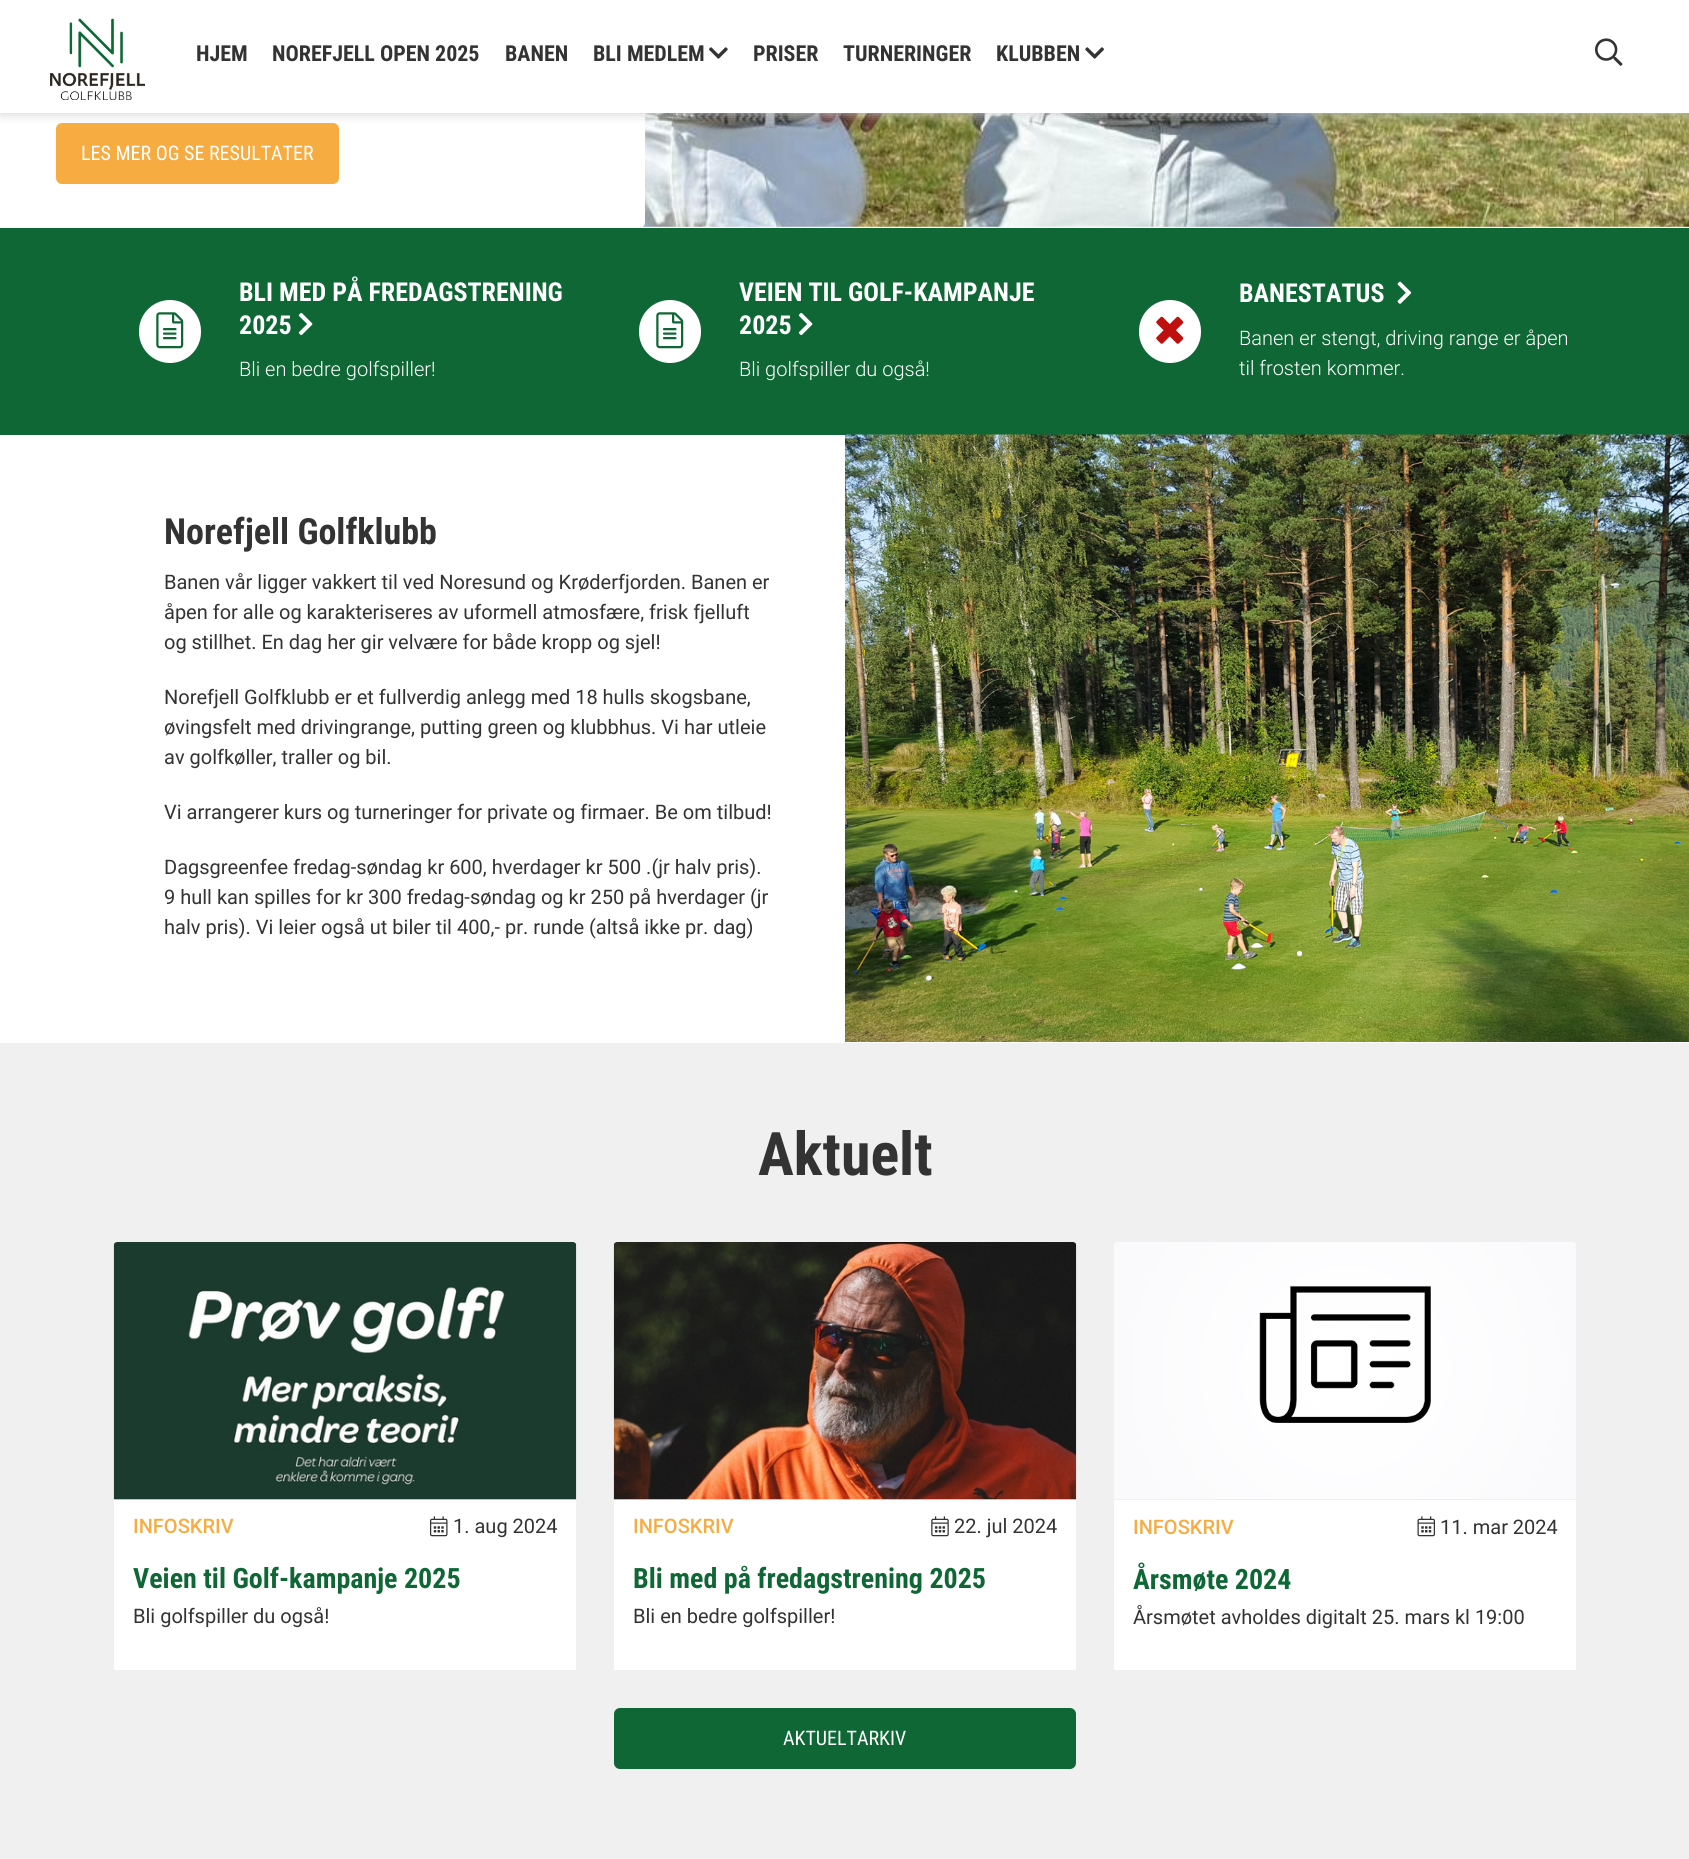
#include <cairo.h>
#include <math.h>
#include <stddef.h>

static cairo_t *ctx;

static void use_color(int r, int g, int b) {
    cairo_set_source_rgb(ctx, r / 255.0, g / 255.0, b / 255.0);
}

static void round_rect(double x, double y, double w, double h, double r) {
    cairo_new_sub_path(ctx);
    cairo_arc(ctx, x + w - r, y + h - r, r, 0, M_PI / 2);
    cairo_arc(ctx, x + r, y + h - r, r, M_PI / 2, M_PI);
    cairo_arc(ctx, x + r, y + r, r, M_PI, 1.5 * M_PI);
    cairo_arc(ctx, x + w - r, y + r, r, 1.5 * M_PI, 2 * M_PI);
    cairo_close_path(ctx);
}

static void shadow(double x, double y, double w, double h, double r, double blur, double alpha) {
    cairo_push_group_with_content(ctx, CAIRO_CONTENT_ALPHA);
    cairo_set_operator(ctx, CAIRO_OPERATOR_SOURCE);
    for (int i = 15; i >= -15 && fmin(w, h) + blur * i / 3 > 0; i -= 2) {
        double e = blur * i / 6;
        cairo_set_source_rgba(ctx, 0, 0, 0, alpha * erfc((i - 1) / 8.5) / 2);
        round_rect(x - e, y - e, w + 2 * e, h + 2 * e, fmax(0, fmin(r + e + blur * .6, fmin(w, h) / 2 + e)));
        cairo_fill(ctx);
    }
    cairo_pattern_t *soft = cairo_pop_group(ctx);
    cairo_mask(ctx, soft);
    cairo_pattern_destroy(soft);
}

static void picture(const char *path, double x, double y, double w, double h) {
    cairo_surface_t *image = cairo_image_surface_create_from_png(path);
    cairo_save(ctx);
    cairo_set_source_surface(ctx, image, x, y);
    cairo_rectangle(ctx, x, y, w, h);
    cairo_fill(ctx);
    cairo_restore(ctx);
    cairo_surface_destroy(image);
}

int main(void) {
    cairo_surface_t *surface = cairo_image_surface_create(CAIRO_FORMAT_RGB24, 1689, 1859);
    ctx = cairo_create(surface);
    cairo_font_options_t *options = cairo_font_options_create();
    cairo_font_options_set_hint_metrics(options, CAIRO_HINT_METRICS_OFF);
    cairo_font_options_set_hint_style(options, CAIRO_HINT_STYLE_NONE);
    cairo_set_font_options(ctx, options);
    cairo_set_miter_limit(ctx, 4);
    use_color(240, 240, 240);
    cairo_paint(ctx);
    use_color(255, 255, 255);
    cairo_rectangle(ctx, 639, 226, 1050, 2);
    cairo_fill(ctx);
    picture("img5.png", 642, 113, 1047, 114);
    cairo_new_path(ctx);
    cairo_move_to(ctx, 0, -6);
    cairo_line_to(ctx, 639, -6);
    cairo_curve_to(ctx, 642.5, -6, 645, -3.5, 645, 0);
    cairo_line_to(ctx, 645, 222);
    cairo_curve_to(ctx, 645, 225.5, 642.5, 228, 639, 228);
    cairo_line_to(ctx, 0, 228);
    cairo_close_path(ctx);
    cairo_fill(ctx);
    use_color(246, 172, 65);
    round_rect(56, 123, 283, 61, 6);
    cairo_fill(ctx);
    use_color(204, 204, 204);
    shadow(0, 0, 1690, 113, 0, 6, 1);
    use_color(255, 255, 255);
    cairo_rectangle(ctx, 0, 0, 1689, 113);
    cairo_fill(ctx);
    picture("img1.png", 50, 18, 96, 82);
    cairo_select_font_face(ctx, "Roboto Condensed", CAIRO_FONT_SLANT_NORMAL, CAIRO_FONT_WEIGHT_BOLD);
    cairo_set_font_size(ctx, 22);
    use_color(51, 51, 51);
    cairo_move_to(ctx, 196, 61);
    cairo_show_text(ctx, "HJEM");
    cairo_move_to(ctx, 272, 61);
    cairo_show_text(ctx, "NOREFJELL OPEN 2025");
    cairo_move_to(ctx, 505, 61);
    cairo_show_text(ctx, "BANEN");
    cairo_move_to(ctx, 593, 61);
    cairo_show_text(ctx, "BLI MEDLEM");
    picture("img2.png", 709, 47, 19, 12);
    cairo_move_to(ctx, 753, 61);
    cairo_show_text(ctx, "PRISER");
    cairo_move_to(ctx, 843, 61);
    cairo_show_text(ctx, "TURNERINGER");
    cairo_move_to(ctx, 996, 61);
    cairo_show_text(ctx, "KLUBBEN");
    picture("img3.png", 1085, 47, 19, 12);
    picture("img4.png", 1595, 38, 28, 28);
    cairo_select_font_face(ctx, "Roboto Condensed", CAIRO_FONT_SLANT_NORMAL, CAIRO_FONT_WEIGHT_NORMAL);
    cairo_set_font_size(ctx, 20);
    use_color(255, 255, 255);
    cairo_move_to(ctx, 81, 160);
    cairo_show_text(ctx, "LES MER OG SE RESULTATER");
    use_color(15, 103, 53);
    cairo_rectangle(ctx, 0, 228, 1689, 207);
    cairo_fill(ctx);
    use_color(255, 255, 255);
    round_rect(139, 300, 62, 63, 31);
    cairo_fill(ctx);
    picture("img6.png", 156, 312, 28, 37);
    cairo_select_font_face(ctx, "Roboto Condensed", CAIRO_FONT_SLANT_NORMAL, CAIRO_FONT_WEIGHT_BOLD);
    cairo_set_font_size(ctx, 26);
    cairo_move_to(ctx, 239, 301);
    cairo_show_text(ctx, "BLI MED PÅ FREDAGSTRENING");
    cairo_move_to(ctx, 239, 334);
    cairo_show_text(ctx, "2025");
    picture("img7.png", 298, 312, 15, 24);
    cairo_select_font_face(ctx, "Roboto Light", CAIRO_FONT_SLANT_NORMAL, CAIRO_FONT_WEIGHT_NORMAL);
    cairo_set_font_size(ctx, 20);
    cairo_move_to(ctx, 239, 376);
    cairo_show_text(ctx, "Bli en bedre golfspiller!");
    round_rect(639, 300, 62, 63, 31);
    cairo_fill(ctx);
    picture("img6.png", 656, 312, 28, 37);
    cairo_select_font_face(ctx, "Roboto Condensed", CAIRO_FONT_SLANT_NORMAL, CAIRO_FONT_WEIGHT_BOLD);
    cairo_set_font_size(ctx, 26);
    cairo_move_to(ctx, 739, 301);
    cairo_show_text(ctx, "VEIEN TIL GOLF-KAMPANJE");
    cairo_move_to(ctx, 739, 334);
    cairo_show_text(ctx, "2025");
    picture("img7.png", 798, 312, 15, 24);
    cairo_select_font_face(ctx, "Roboto Light", CAIRO_FONT_SLANT_NORMAL, CAIRO_FONT_WEIGHT_NORMAL);
    cairo_set_font_size(ctx, 20);
    cairo_move_to(ctx, 739, 376);
    cairo_show_text(ctx, "Bli golfspiller du også!");
    round_rect(1139, 300, 62, 63, 31);
    cairo_fill(ctx);
    picture("img8.png", 1156, 316, 28, 28);
    cairo_select_font_face(ctx, "Roboto Condensed", CAIRO_FONT_SLANT_NORMAL, CAIRO_FONT_WEIGHT_BOLD);
    cairo_set_font_size(ctx, 26);
    cairo_move_to(ctx, 1239, 302);
    cairo_show_text(ctx, "BANESTATUS");
    picture("img9.png", 1397, 281, 15, 23);
    cairo_select_font_face(ctx, "Roboto Light", CAIRO_FONT_SLANT_NORMAL, CAIRO_FONT_WEIGHT_NORMAL);
    cairo_set_font_size(ctx, 20);
    cairo_move_to(ctx, 1239, 345);
    cairo_show_text(ctx, "Banen er stengt, driving range er åpen");
    cairo_move_to(ctx, 1239, 375);
    cairo_show_text(ctx, "til frosten kommer.");
    cairo_rectangle(ctx, 0, 435, 1689, 608);
    cairo_fill(ctx);
    cairo_select_font_face(ctx, "Roboto Condensed", CAIRO_FONT_SLANT_NORMAL, CAIRO_FONT_WEIGHT_BOLD);
    cairo_set_font_size(ctx, 36);
    use_color(51, 51, 51);
    cairo_move_to(ctx, 164, 544);
    cairo_show_text(ctx, "Norefjell Golfklubb");
    cairo_select_font_face(ctx, "Roboto", CAIRO_FONT_SLANT_NORMAL, CAIRO_FONT_WEIGHT_NORMAL);
    cairo_set_font_size(ctx, 20);
    cairo_move_to(ctx, 164, 589);
    cairo_show_text(ctx, "Banen vår ligger vakkert til ved Noresund og Krøderfjorden. Banen er");
    cairo_move_to(ctx, 164, 619);
    cairo_show_text(ctx, "åpen for alle og karakteriseres av uformell atmosfære, frisk fjelluft");
    cairo_move_to(ctx, 164, 649);
    cairo_show_text(ctx, "og stillhet. En dag her gir velvære for både kropp og sjel!");
    cairo_move_to(ctx, 164, 704);
    cairo_show_text(ctx, "Norefjell Golfklubb er et fullverdig anlegg med 18 hulls skogsbane,");
    cairo_move_to(ctx, 164, 734);
    cairo_show_text(ctx, "øvingsfelt med drivingrange, putting green og klubbhus. Vi har utleie");
    cairo_move_to(ctx, 164, 764);
    cairo_show_text(ctx, "av golfkøller, traller og bil.");
    cairo_move_to(ctx, 164, 819);
    cairo_show_text(ctx, "Vi arrangerer kurs og turneringer for private og firmaer. Be om tilbud!");
    cairo_move_to(ctx, 164, 874);
    cairo_show_text(ctx, "Dagsgreenfee fredag-søndag kr 600, hverdager kr 500 .(jr halv pris).");
    cairo_move_to(ctx, 164, 904);
    cairo_show_text(ctx, "9 hull kan spilles for kr 300 fredag-søndag og kr 250 på hverdager (jr");
    cairo_move_to(ctx, 164, 934);
    cairo_show_text(ctx, "halv pris). Vi leier også ut biler til 400,- pr. runde (altså ikke pr. dag)");
    picture("img10.png", 845, 434, 844, 608);
    cairo_select_font_face(ctx, "Roboto Condensed", CAIRO_FONT_SLANT_NORMAL, CAIRO_FONT_WEIGHT_BOLD);
    cairo_set_font_size(ctx, 60);
    cairo_move_to(ctx, 758, 1175);
    cairo_show_text(ctx, "Aktuelt");
    picture("img11.png", 113, 1242, 464, 258);
    use_color(255, 255, 255);
    cairo_rectangle(ctx, 114, 1500, 462, 170);
    cairo_fill(ctx);
    cairo_select_font_face(ctx, "Roboto Medium", CAIRO_FONT_SLANT_NORMAL, CAIRO_FONT_WEIGHT_NORMAL);
    cairo_set_font_size(ctx, 20);
    use_color(246, 172, 65);
    cairo_move_to(ctx, 133, 1533);
    cairo_show_text(ctx, "INFOSKRIV");
    picture("img12.png", 430, 1516, 18, 21);
    cairo_select_font_face(ctx, "Roboto", CAIRO_FONT_SLANT_NORMAL, CAIRO_FONT_WEIGHT_NORMAL);
    use_color(51, 51, 51);
    cairo_move_to(ctx, 453, 1533);
    cairo_show_text(ctx, "1. aug 2024");
    cairo_select_font_face(ctx, "Roboto Condensed", CAIRO_FONT_SLANT_NORMAL, CAIRO_FONT_WEIGHT_BOLD);
    cairo_set_font_size(ctx, 28);
    use_color(15, 103, 53);
    cairo_move_to(ctx, 133, 1588);
    cairo_show_text(ctx, "Veien til Golf-kampanje 2025");
    cairo_select_font_face(ctx, "Roboto", CAIRO_FONT_SLANT_NORMAL, CAIRO_FONT_WEIGHT_NORMAL);
    cairo_set_font_size(ctx, 20);
    use_color(51, 51, 51);
    cairo_move_to(ctx, 133, 1623);
    cairo_show_text(ctx, "Bli golfspiller du også!");
    picture("img13.png", 613, 1242, 464, 258);
    use_color(255, 255, 255);
    cairo_rectangle(ctx, 614, 1500, 462, 170);
    cairo_fill(ctx);
    cairo_select_font_face(ctx, "Roboto Medium", CAIRO_FONT_SLANT_NORMAL, CAIRO_FONT_WEIGHT_NORMAL);
    use_color(246, 172, 65);
    cairo_move_to(ctx, 633, 1533);
    cairo_show_text(ctx, "INFOSKRIV");
    picture("img14.png", 931, 1516, 18, 21);
    cairo_select_font_face(ctx, "Roboto", CAIRO_FONT_SLANT_NORMAL, CAIRO_FONT_WEIGHT_NORMAL);
    use_color(51, 51, 51);
    cairo_move_to(ctx, 954, 1533);
    cairo_show_text(ctx, "22. jul 2024");
    cairo_select_font_face(ctx, "Roboto Condensed", CAIRO_FONT_SLANT_NORMAL, CAIRO_FONT_WEIGHT_BOLD);
    cairo_set_font_size(ctx, 28);
    use_color(15, 103, 53);
    cairo_move_to(ctx, 633, 1588);
    cairo_show_text(ctx, "Bli med på fredagstrening 2025");
    cairo_select_font_face(ctx, "Roboto", CAIRO_FONT_SLANT_NORMAL, CAIRO_FONT_WEIGHT_NORMAL);
    cairo_set_font_size(ctx, 20);
    use_color(51, 51, 51);
    cairo_move_to(ctx, 633, 1623);
    cairo_show_text(ctx, "Bli en bedre golfspiller!");
    picture("img15.png", 1114, 1242, 462, 257);
    use_color(255, 255, 255);
    cairo_rectangle(ctx, 1114, 1500, 462, 170);
    cairo_fill(ctx);
    cairo_select_font_face(ctx, "Roboto Medium", CAIRO_FONT_SLANT_NORMAL, CAIRO_FONT_WEIGHT_NORMAL);
    use_color(246, 172, 65);
    cairo_move_to(ctx, 1133, 1534);
    cairo_show_text(ctx, "INFOSKRIV");
    picture("img16.png", 1417, 1516, 18, 21);
    cairo_select_font_face(ctx, "Roboto", CAIRO_FONT_SLANT_NORMAL, CAIRO_FONT_WEIGHT_NORMAL);
    use_color(51, 51, 51);
    cairo_move_to(ctx, 1440, 1534);
    cairo_show_text(ctx, "11. mar 2024");
    cairo_select_font_face(ctx, "Roboto Condensed", CAIRO_FONT_SLANT_NORMAL, CAIRO_FONT_WEIGHT_BOLD);
    cairo_set_font_size(ctx, 28);
    use_color(15, 103, 53);
    cairo_move_to(ctx, 1133, 1589);
    cairo_show_text(ctx, "Årsmøte 2024");
    cairo_select_font_face(ctx, "Roboto", CAIRO_FONT_SLANT_NORMAL, CAIRO_FONT_WEIGHT_NORMAL);
    cairo_set_font_size(ctx, 20);
    use_color(51, 51, 51);
    cairo_move_to(ctx, 1133, 1624);
    cairo_show_text(ctx, "Årsmøtet avholdes digitalt 25. mars kl 19:00");
    use_color(15, 103, 53);
    round_rect(614, 1708, 462, 61, 6);
    cairo_fill(ctx);
    cairo_select_font_face(ctx, "Roboto Condensed", CAIRO_FONT_SLANT_NORMAL, CAIRO_FONT_WEIGHT_NORMAL);
    use_color(255, 255, 255);
    cairo_move_to(ctx, 783, 1745);
    cairo_show_text(ctx, "AKTUELTARKIV");
    cairo_surface_write_to_png(surface, "result.png");
    cairo_font_options_destroy(options);
    cairo_destroy(ctx);
    cairo_surface_destroy(surface);
    return 0;
}
